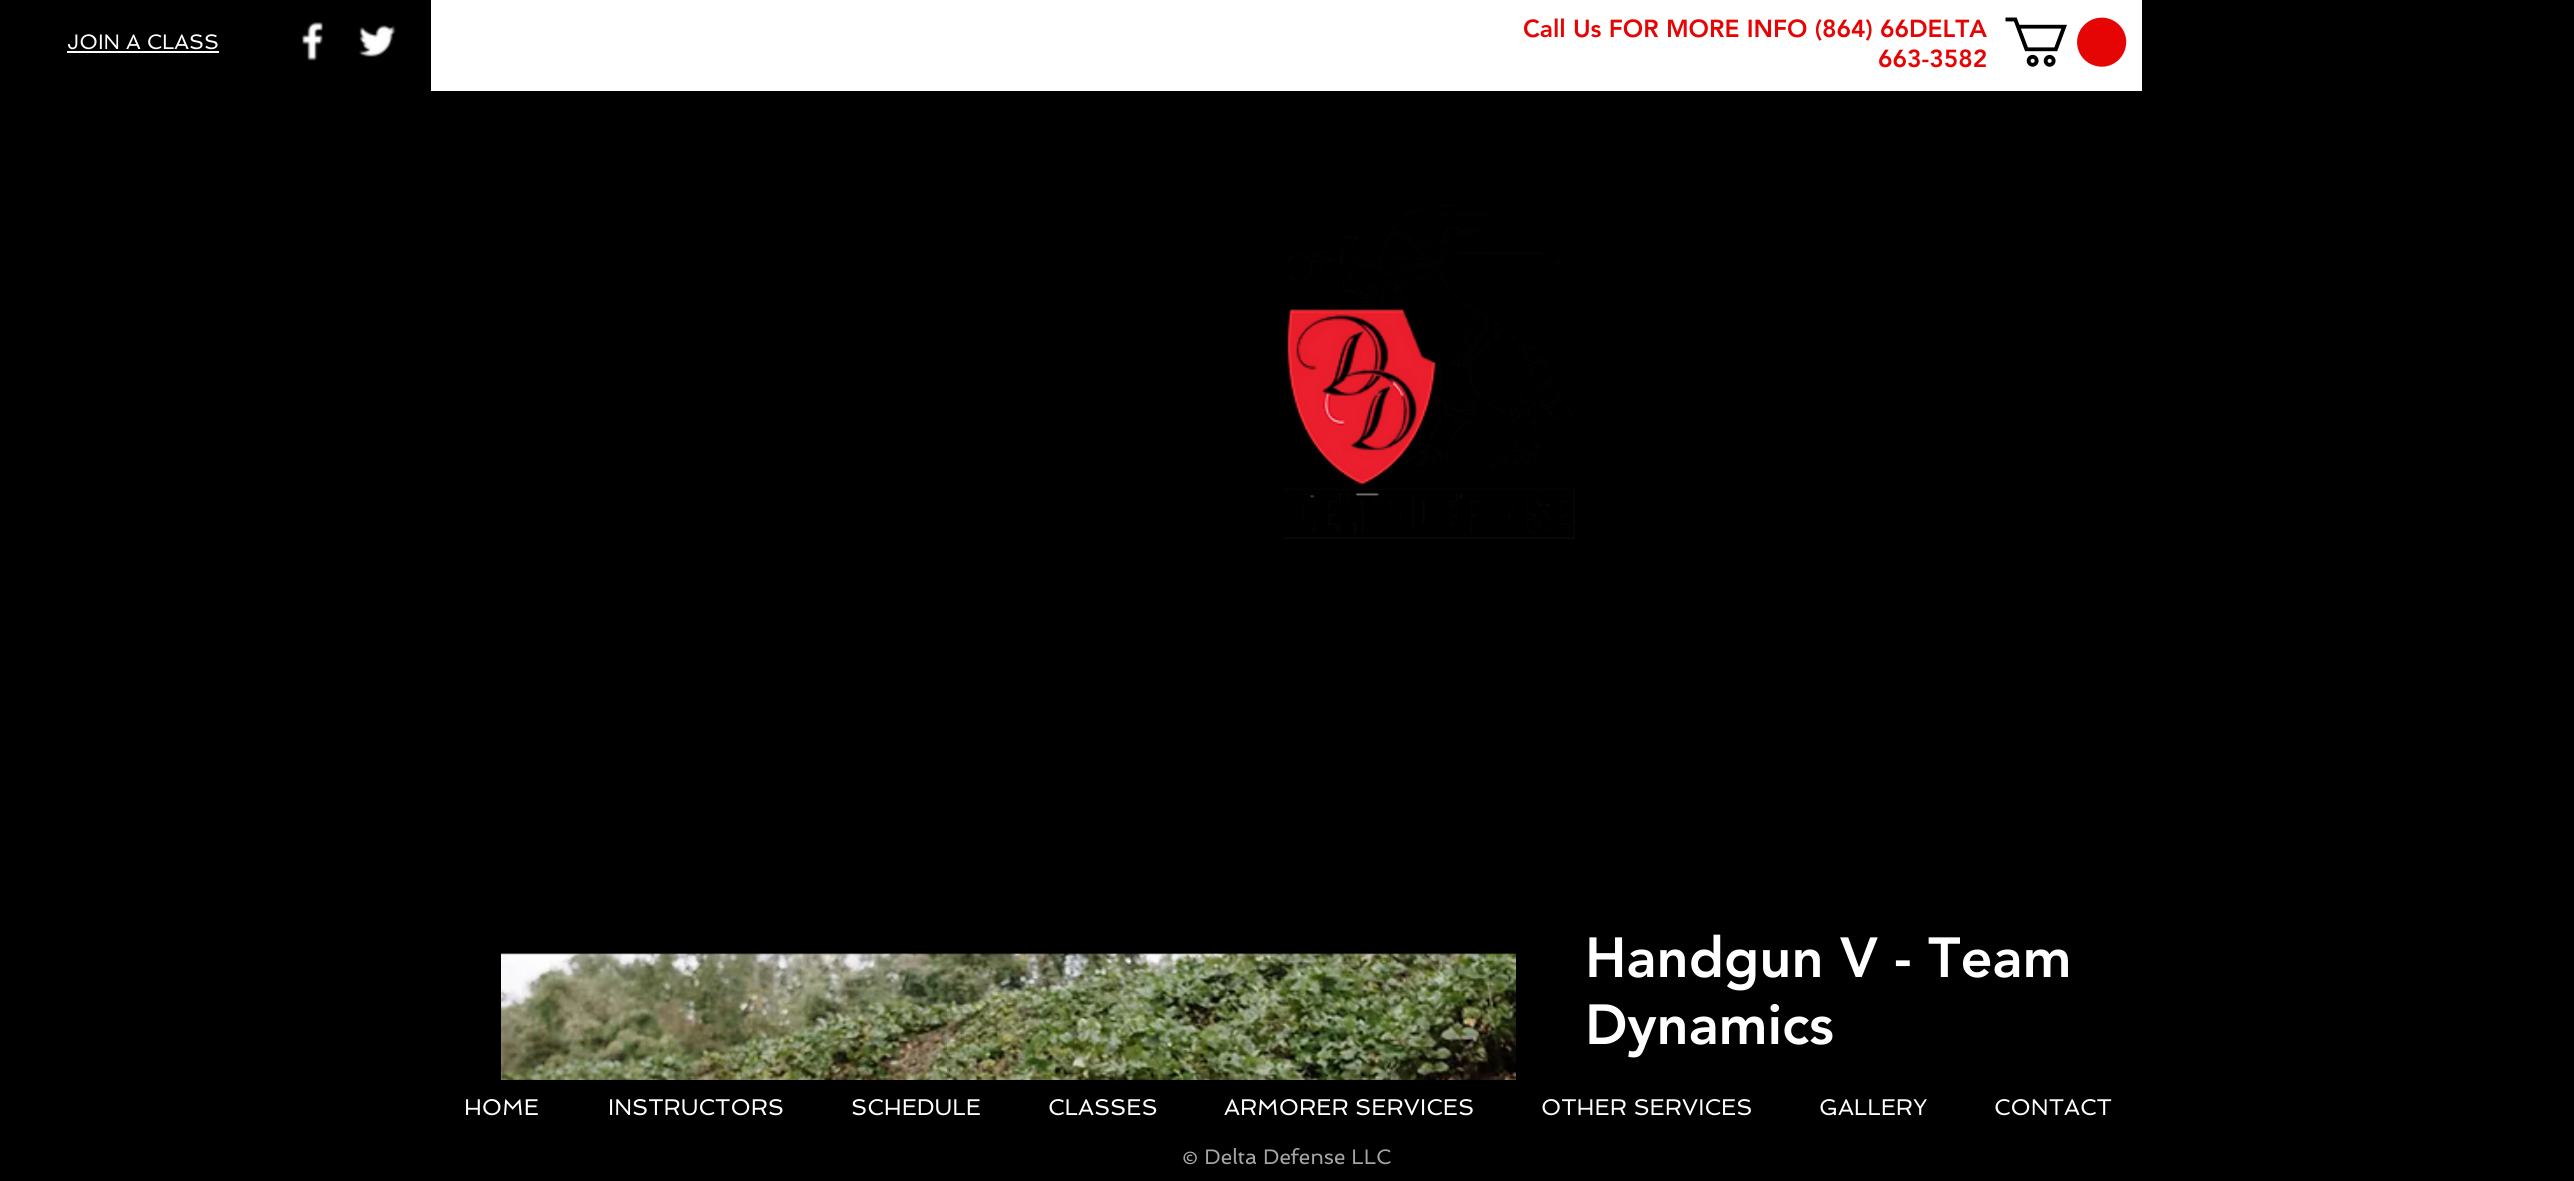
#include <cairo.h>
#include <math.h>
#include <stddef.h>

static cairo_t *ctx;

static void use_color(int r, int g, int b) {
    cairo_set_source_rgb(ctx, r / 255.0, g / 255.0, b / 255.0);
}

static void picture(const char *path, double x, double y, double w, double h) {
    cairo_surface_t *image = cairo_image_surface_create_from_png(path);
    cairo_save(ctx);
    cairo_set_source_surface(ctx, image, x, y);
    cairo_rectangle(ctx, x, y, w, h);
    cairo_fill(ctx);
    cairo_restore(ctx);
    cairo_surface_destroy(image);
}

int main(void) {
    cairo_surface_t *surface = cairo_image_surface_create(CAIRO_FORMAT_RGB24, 2574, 1181);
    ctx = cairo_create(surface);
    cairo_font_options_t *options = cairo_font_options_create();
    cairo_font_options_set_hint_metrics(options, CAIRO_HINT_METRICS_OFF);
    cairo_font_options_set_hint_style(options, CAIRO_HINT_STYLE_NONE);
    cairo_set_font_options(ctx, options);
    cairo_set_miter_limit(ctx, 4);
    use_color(0, 0, 0);
    cairo_paint(ctx);
    cairo_select_font_face(ctx, "Spinnaker", CAIRO_FONT_SLANT_NORMAL, CAIRO_FONT_WEIGHT_NORMAL);
    cairo_set_font_size(ctx, 21);
    use_color(255, 255, 255);
    cairo_move_to(ctx, 67, 49);
    cairo_show_text(ctx, "JOIN A CLASS");
    cairo_rectangle(ctx, 67, 51, 152, 2);
    cairo_fill(ctx);
    picture("img1.png", 301, 22, 22, 39);
    picture("img2.png", 359, 25, 37, 32);
    cairo_rectangle(ctx, 431, 0, 1711, 91);
    cairo_fill(ctx);
    picture("img3.png", 2005, 17, 122, 50);
    cairo_select_font_face(ctx, "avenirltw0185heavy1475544 Black", CAIRO_FONT_SLANT_NORMAL, CAIRO_FONT_WEIGHT_NORMAL);
    cairo_set_font_size(ctx, 24.5);
    use_color(230, 5, 5);
    cairo_move_to(ctx, 1523, 37);
    cairo_show_text(ctx, "Call Us FOR MORE INFO (864) 66DELTA");
    cairo_move_to(ctx, 1878, 67);
    cairo_show_text(ctx, "663-3582");
    picture("img4.png", 1283, 200, 292, 339);
    picture("img5.png", 501, 953, 1015, 127);
    cairo_set_font_size(ctx, 56);
    use_color(255, 255, 255);
    cairo_move_to(ctx, 1585, 977);
    cairo_show_text(ctx, "Handgun V - Team");
    cairo_move_to(ctx, 1585, 1044);
    cairo_show_text(ctx, "Dynamics");
    cairo_select_font_face(ctx, "Spinnaker", CAIRO_FONT_SLANT_NORMAL, CAIRO_FONT_WEIGHT_NORMAL);
    cairo_set_font_size(ctx, 22.75);
    cairo_move_to(ctx, 464, 1115);
    cairo_show_text(ctx, "HOME");
    cairo_move_to(ctx, 608, 1115);
    cairo_show_text(ctx, "INSTRUCTORS");
    cairo_move_to(ctx, 851, 1115);
    cairo_show_text(ctx, "SCHEDULE");
    cairo_move_to(ctx, 1048, 1115);
    cairo_show_text(ctx, "CLASSES");
    cairo_move_to(ctx, 1224, 1115);
    cairo_show_text(ctx, "ARMORER SERVICES");
    cairo_move_to(ctx, 1541, 1115);
    cairo_show_text(ctx, "OTHER SERVICES");
    cairo_move_to(ctx, 1819, 1115);
    cairo_show_text(ctx, "GALLERY");
    cairo_move_to(ctx, 1994, 1115);
    cairo_show_text(ctx, "CONTACT");
    cairo_set_font_size(ctx, 21);
    use_color(165, 165, 165);
    cairo_move_to(ctx, 1182, 1164);
    cairo_show_text(ctx, "© Delta Defense LLC");
    cairo_surface_write_to_png(surface, "result.png");
    cairo_font_options_destroy(options);
    cairo_destroy(ctx);
    cairo_surface_destroy(surface);
    return 0;
}
